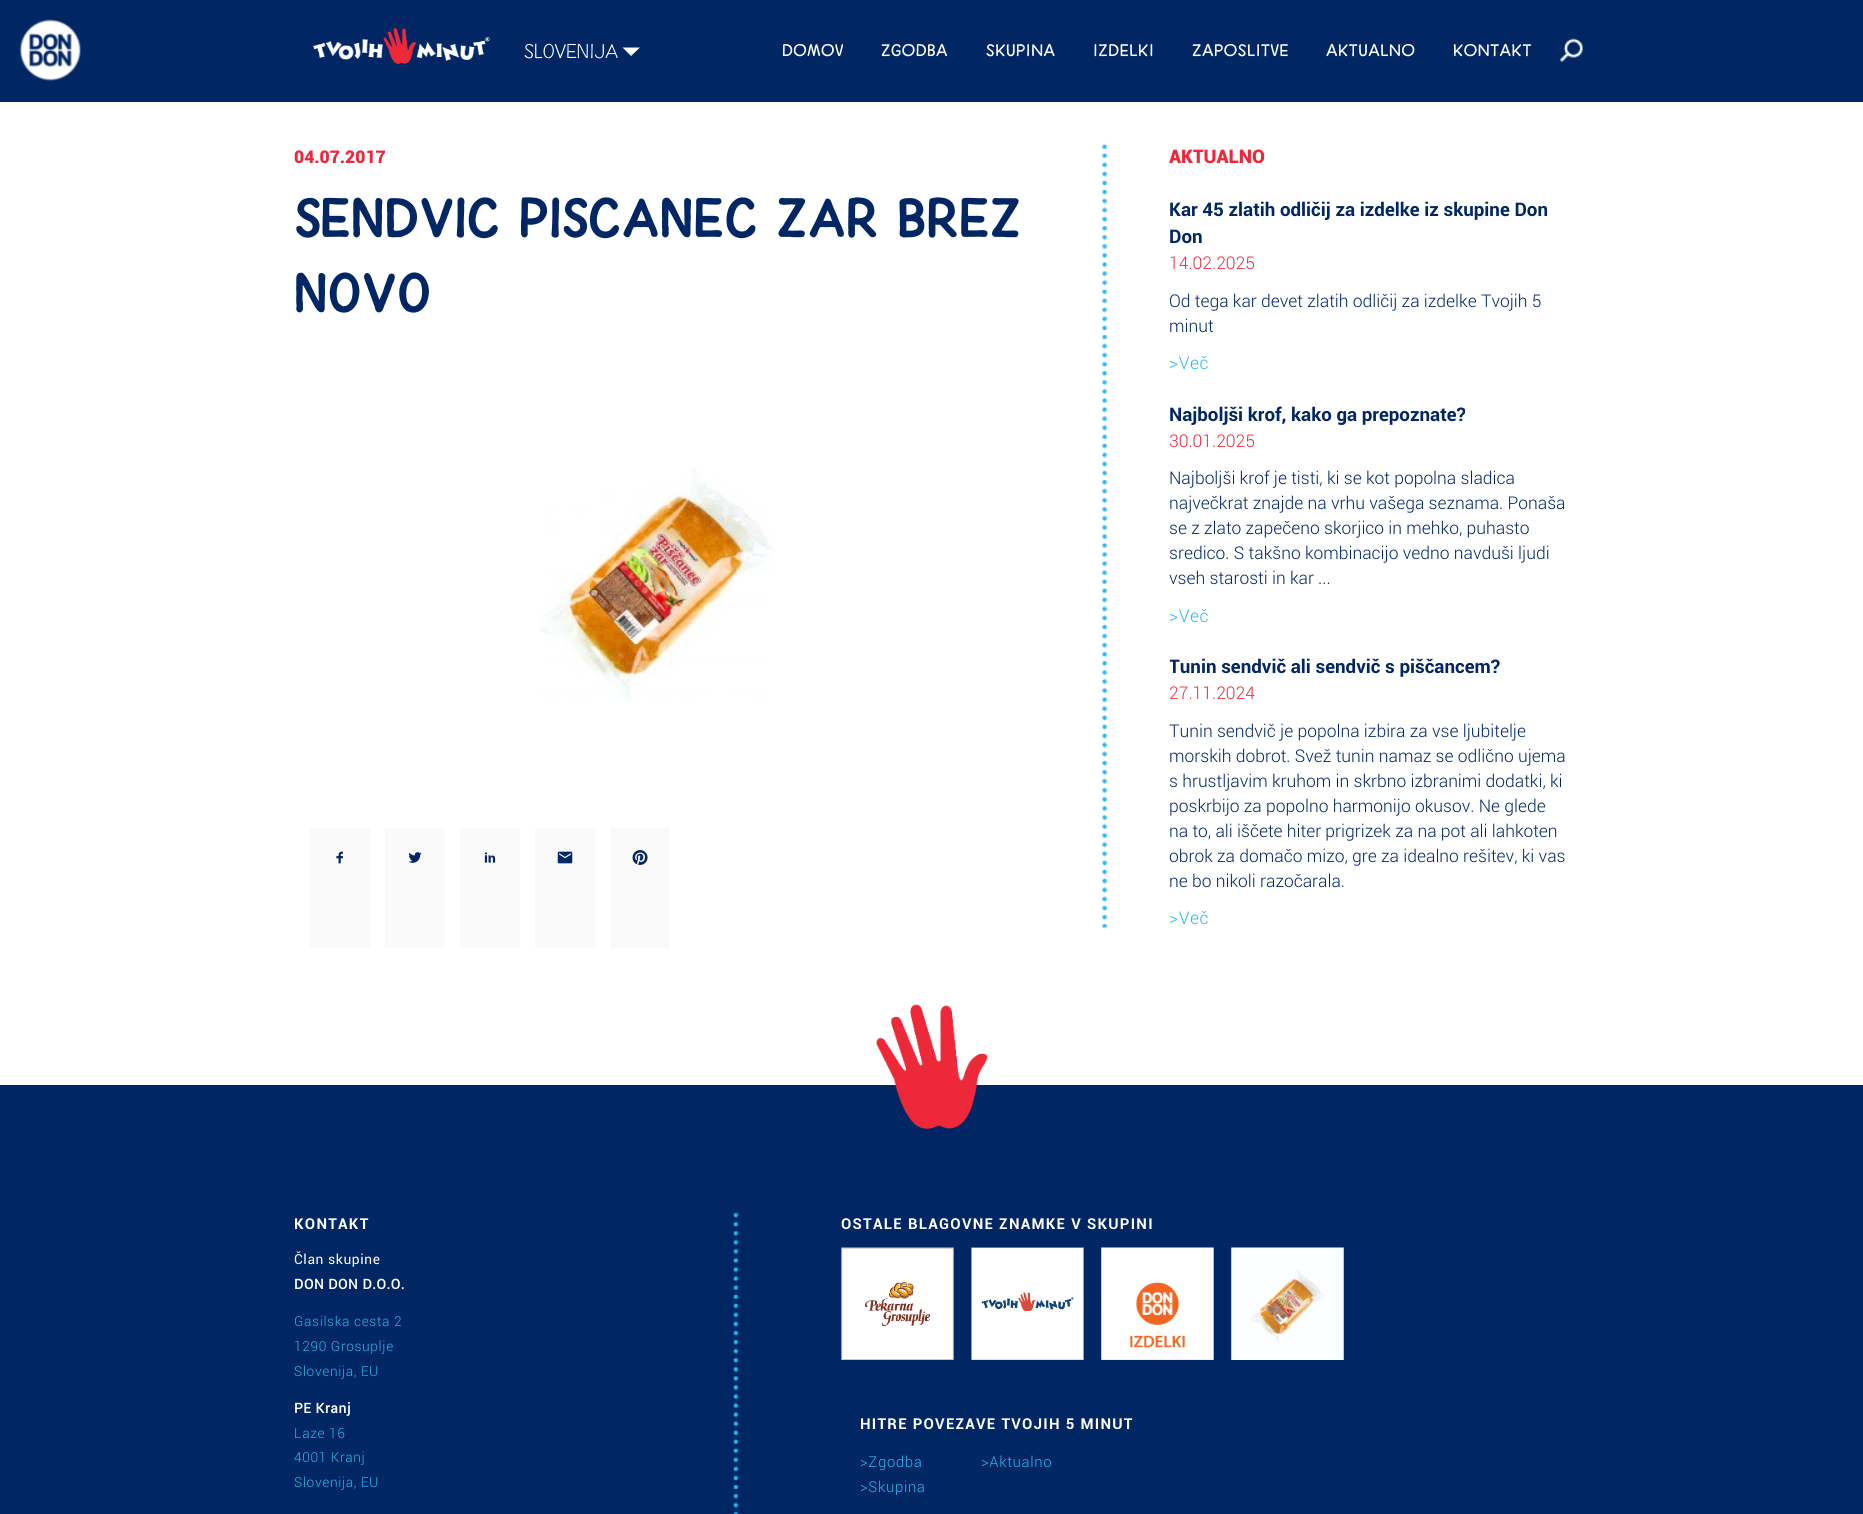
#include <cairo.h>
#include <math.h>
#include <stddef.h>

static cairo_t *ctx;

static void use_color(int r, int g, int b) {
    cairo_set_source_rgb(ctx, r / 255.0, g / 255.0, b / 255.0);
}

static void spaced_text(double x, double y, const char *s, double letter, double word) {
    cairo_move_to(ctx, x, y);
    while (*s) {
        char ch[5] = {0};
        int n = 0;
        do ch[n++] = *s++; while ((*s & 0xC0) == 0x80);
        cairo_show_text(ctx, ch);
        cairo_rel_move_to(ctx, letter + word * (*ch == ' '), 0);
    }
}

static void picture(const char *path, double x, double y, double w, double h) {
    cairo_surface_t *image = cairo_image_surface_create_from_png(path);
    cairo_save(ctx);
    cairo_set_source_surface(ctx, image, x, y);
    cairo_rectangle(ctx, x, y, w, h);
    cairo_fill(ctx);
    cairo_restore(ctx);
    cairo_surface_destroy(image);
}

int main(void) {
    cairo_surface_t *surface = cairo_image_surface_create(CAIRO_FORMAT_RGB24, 1863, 1514);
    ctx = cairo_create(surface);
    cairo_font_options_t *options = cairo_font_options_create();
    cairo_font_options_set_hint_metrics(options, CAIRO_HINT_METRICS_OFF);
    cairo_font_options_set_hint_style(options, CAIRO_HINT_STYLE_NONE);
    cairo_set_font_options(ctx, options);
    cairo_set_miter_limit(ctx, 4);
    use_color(255, 255, 255);
    cairo_paint(ctx);
    use_color(0, 38, 100);
    cairo_rectangle(ctx, 0, 0, 1863, 102);
    cairo_fill(ctx);
    picture("img1.png", 19, 19, 62, 62);
    picture("img2.png", 313, 28, 177, 36);
    cairo_select_font_face(ctx, "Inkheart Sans", CAIRO_FONT_SLANT_NORMAL, CAIRO_FONT_WEIGHT_NORMAL);
    cairo_set_font_size(ctx, 30);
    use_color(255, 255, 255);
    cairo_move_to(ctx, 524, 58);
    cairo_show_text(ctx, "Slovenija");
    cairo_new_path(ctx);
    cairo_move_to(ctx, 622.5, 47.5);
    cairo_line_to(ctx, 640, 47.5);
    cairo_line_to(ctx, 631, 56);
    cairo_close_path(ctx);
    cairo_fill(ctx);
    cairo_select_font_face(ctx, "Inkheart Sans", CAIRO_FONT_SLANT_NORMAL, CAIRO_FONT_WEIGHT_BOLD);
    cairo_set_font_size(ctx, 23.75);
    spaced_text(782, 56, "DOMOV", 1.25, 0);
    spaced_text(881, 56, "ZGODBA", 1.25, 0);
    spaced_text(986, 56, "SKUPINA", 1.25, 0);
    spaced_text(1093, 56, "IZDELKI", 1.25, 0);
    spaced_text(1192, 56, "ZAPOSLITVE", 1.25, 0);
    spaced_text(1326, 56, "AKTUALNO", 1.25, 0);
    spaced_text(1453, 56, "KONTAKT", 1.25, 0);
    picture("img3.png", 1559, 38, 24, 25);
    cairo_select_font_face(ctx, "Roboto Black", CAIRO_FONT_SLANT_NORMAL, CAIRO_FONT_WEIGHT_NORMAL);
    cairo_set_font_size(ctx, 17.5);
    use_color(237, 41, 57);
    cairo_move_to(ctx, 294, 163);
    cairo_show_text(ctx, "04.07.2017");
    cairo_select_font_face(ctx, "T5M", CAIRO_FONT_SLANT_NORMAL, CAIRO_FONT_WEIGHT_BOLD);
    cairo_set_font_size(ctx, 75);
    use_color(0, 38, 100);
    cairo_move_to(ctx, 294, 235);
    cairo_show_text(ctx, "sendvic piscanec zar brez");
    cairo_move_to(ctx, 294, 310);
    cairo_show_text(ctx, "novo");
    picture("img4.png", 539, 468, 236, 234);
    use_color(250, 250, 250);
    cairo_rectangle(ctx, 310, 828, 60, 120);
    cairo_fill(ctx);
    picture("img5.png", 336, 851, 7, 13);
    cairo_rectangle(ctx, 385, 828, 60, 120);
    cairo_fill(ctx);
    picture("img6.png", 408, 852, 14, 11);
    cairo_rectangle(ctx, 460, 828, 60, 120);
    cairo_fill(ctx);
    picture("img7.png", 484, 852, 12, 11);
    cairo_rectangle(ctx, 535, 828, 60, 120);
    cairo_fill(ctx);
    picture("img8.png", 557, 851, 16, 13);
    cairo_rectangle(ctx, 610, 828, 60, 120);
    cairo_fill(ctx);
    picture("img9.png", 632, 850, 16, 15);
    picture("img10.png", 1102, 143, 6, 785);
    cairo_select_font_face(ctx, "Roboto Black", CAIRO_FONT_SLANT_NORMAL, CAIRO_FONT_WEIGHT_NORMAL);
    cairo_set_font_size(ctx, 18.75);
    use_color(237, 41, 57);
    cairo_move_to(ctx, 1169, 163);
    cairo_show_text(ctx, "AKTUALNO");
    cairo_select_font_face(ctx, "Roboto", CAIRO_FONT_SLANT_NORMAL, CAIRO_FONT_WEIGHT_BOLD);
    use_color(0, 38, 100);
    cairo_move_to(ctx, 1169, 216);
    cairo_show_text(ctx, "Kar 45 zlatih odličij za izdelke iz skupine Don");
    cairo_move_to(ctx, 1169, 243);
    cairo_show_text(ctx, "Don");
    cairo_select_font_face(ctx, "Roboto Light", CAIRO_FONT_SLANT_NORMAL, CAIRO_FONT_WEIGHT_NORMAL);
    cairo_set_font_size(ctx, 17.5);
    use_color(237, 41, 57);
    cairo_move_to(ctx, 1169, 269);
    cairo_show_text(ctx, "14.02.2025");
    use_color(0, 38, 100);
    cairo_move_to(ctx, 1169, 307);
    cairo_show_text(ctx, "Od tega kar devet zlatih odličij za izdelke Tvojih 5");
    cairo_move_to(ctx, 1169, 332);
    cairo_show_text(ctx, "minut");
    use_color(41, 183, 240);
    spaced_text(1169, 369, ">Več", 0.6, 0);
    cairo_select_font_face(ctx, "Roboto", CAIRO_FONT_SLANT_NORMAL, CAIRO_FONT_WEIGHT_BOLD);
    cairo_set_font_size(ctx, 18.75);
    use_color(0, 38, 100);
    cairo_move_to(ctx, 1169, 421);
    cairo_show_text(ctx, "Najboljši krof, kako ga prepoznate?");
    cairo_select_font_face(ctx, "Roboto Light", CAIRO_FONT_SLANT_NORMAL, CAIRO_FONT_WEIGHT_NORMAL);
    cairo_set_font_size(ctx, 17.5);
    use_color(237, 41, 57);
    cairo_move_to(ctx, 1169, 447);
    cairo_show_text(ctx, "30.01.2025");
    use_color(0, 38, 100);
    cairo_move_to(ctx, 1169, 484);
    cairo_show_text(ctx, "Najboljši krof je tisti, ki se kot popolna sladica");
    cairo_move_to(ctx, 1169, 509);
    cairo_show_text(ctx, "največkrat znajde na vrhu vašega seznama. Ponaša");
    cairo_move_to(ctx, 1169, 534);
    cairo_show_text(ctx, "se z zlato zapečeno skorjico in mehko, puhasto");
    cairo_move_to(ctx, 1169, 559);
    cairo_show_text(ctx, "sredico. S takšno kombinacijo vedno navduši ljudi");
    cairo_move_to(ctx, 1169, 584);
    cairo_show_text(ctx, "vseh starosti in kar ...");
    use_color(41, 183, 240);
    spaced_text(1169, 622, ">Več", 0.6, 0);
    cairo_save(ctx);
    cairo_rectangle(ctx, 1170, 170, 400, 760);
    cairo_clip(ctx);
    cairo_select_font_face(ctx, "Roboto", CAIRO_FONT_SLANT_NORMAL, CAIRO_FONT_WEIGHT_BOLD);
    cairo_set_font_size(ctx, 18.75);
    use_color(0, 38, 100);
    cairo_move_to(ctx, 1169, 673);
    cairo_show_text(ctx, "Tunin sendvič ali sendvič s piščancem?");
    cairo_restore(ctx);
    use_color(237, 41, 57);
    cairo_move_to(ctx, 1169, 699);
    cairo_show_text(ctx, "27.11.2024");
    use_color(0, 38, 100);
    cairo_move_to(ctx, 1169, 737);
    cairo_show_text(ctx, "Tunin sendvič je popolna izbira za vse ljubitelje");
    cairo_move_to(ctx, 1169, 762);
    cairo_show_text(ctx, "morskih dobrot. Svež tunin namaz se odlično ujema");
    cairo_move_to(ctx, 1169, 787);
    cairo_show_text(ctx, "s hrustljavim kruhom in skrbno izbranimi dodatki, ki");
    cairo_move_to(ctx, 1169, 812);
    cairo_show_text(ctx, "poskrbijo za popolno harmonijo okusov. Ne glede");
    cairo_move_to(ctx, 1169, 837);
    cairo_show_text(ctx, "na to, ali iščete hiter prigrizek za na pot ali lahkoten");
    cairo_move_to(ctx, 1169, 862);
    cairo_show_text(ctx, "obrok za domačo mizo, gre za idealno rešitev, ki vas");
    cairo_move_to(ctx, 1169, 887);
    cairo_show_text(ctx, "ne bo nikoli razočarala.");
    use_color(41, 183, 240);
    spaced_text(1169, 924, ">Več", 0.6, 0);
    use_color(0, 38, 100);
    cairo_rectangle(ctx, 0, 1085, 1863, 429);
    cairo_fill(ctx);
    picture("img11.png", 876, 1004, 112, 125);
    cairo_select_font_face(ctx, "Roboto", CAIRO_FONT_SLANT_NORMAL, CAIRO_FONT_WEIGHT_BOLD);
    cairo_set_font_size(ctx, 15);
    use_color(255, 255, 255);
    spaced_text(294, 1229, "KONTAKT", 1.25, 0);
    cairo_select_font_face(ctx, "Roboto", CAIRO_FONT_SLANT_NORMAL, CAIRO_FONT_WEIGHT_NORMAL);
    cairo_set_font_size(ctx, 13.75);
    spaced_text(294, 1264, "Član skupine", 0.6, 0);
    cairo_select_font_face(ctx, "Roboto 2", CAIRO_FONT_SLANT_NORMAL, CAIRO_FONT_WEIGHT_BOLD);
    spaced_text(294, 1289, "DON DON D.O.O.", 0.6, 0);
    cairo_select_font_face(ctx, "Roboto Light", CAIRO_FONT_SLANT_NORMAL, CAIRO_FONT_WEIGHT_NORMAL);
    use_color(41, 183, 240);
    spaced_text(294, 1326, "Gasilska cesta 2", 0.6, 0);
    spaced_text(294, 1351, "1290 Grosuplje", 0.6, 0);
    spaced_text(294, 1376, "Slovenija, EU", 0.6, 0);
    cairo_select_font_face(ctx, "Roboto 2", CAIRO_FONT_SLANT_NORMAL, CAIRO_FONT_WEIGHT_BOLD);
    use_color(255, 255, 255);
    spaced_text(294, 1413, "PE Kranj", 0.6, 0);
    cairo_select_font_face(ctx, "Roboto Light", CAIRO_FONT_SLANT_NORMAL, CAIRO_FONT_WEIGHT_NORMAL);
    use_color(41, 183, 240);
    spaced_text(294, 1438, "Laze 16", 0.6, 0);
    spaced_text(294, 1462, "4001 Kranj", 0.6, 0);
    spaced_text(294, 1487, "Slovenija, EU", 0.6, 0);
    picture("img12.png", 733, 1212, 6, 302);
    cairo_select_font_face(ctx, "Roboto", CAIRO_FONT_SLANT_NORMAL, CAIRO_FONT_WEIGHT_BOLD);
    cairo_set_font_size(ctx, 15);
    use_color(255, 255, 255);
    spaced_text(841, 1229, "OSTALE BLAGOVNE ZNAMKE V SKUPINI", 1.25, 0);
    picture("img13.png", 841, 1247, 113, 113);
    picture("img14.png", 971, 1247, 113, 113);
    picture("img15.png", 1101, 1247, 113, 113);
    picture("img16.png", 1231, 1247, 113, 113);
    spaced_text(860, 1429, "HITRE POVEZAVE TVOJIH 5 MINUT", 1.25, 0);
    cairo_select_font_face(ctx, "Roboto Light", CAIRO_FONT_SLANT_NORMAL, CAIRO_FONT_WEIGHT_NORMAL);
    use_color(41, 183, 240);
    spaced_text(860, 1467, ">Zgodba", 0.6, 0);
    spaced_text(860, 1492, ">Skupina", 0.6, 0);
    spaced_text(981, 1467, ">Aktualno", 0.6, 0);
    cairo_surface_write_to_png(surface, "result.png");
    cairo_font_options_destroy(options);
    cairo_destroy(ctx);
    cairo_surface_destroy(surface);
    return 0;
}
